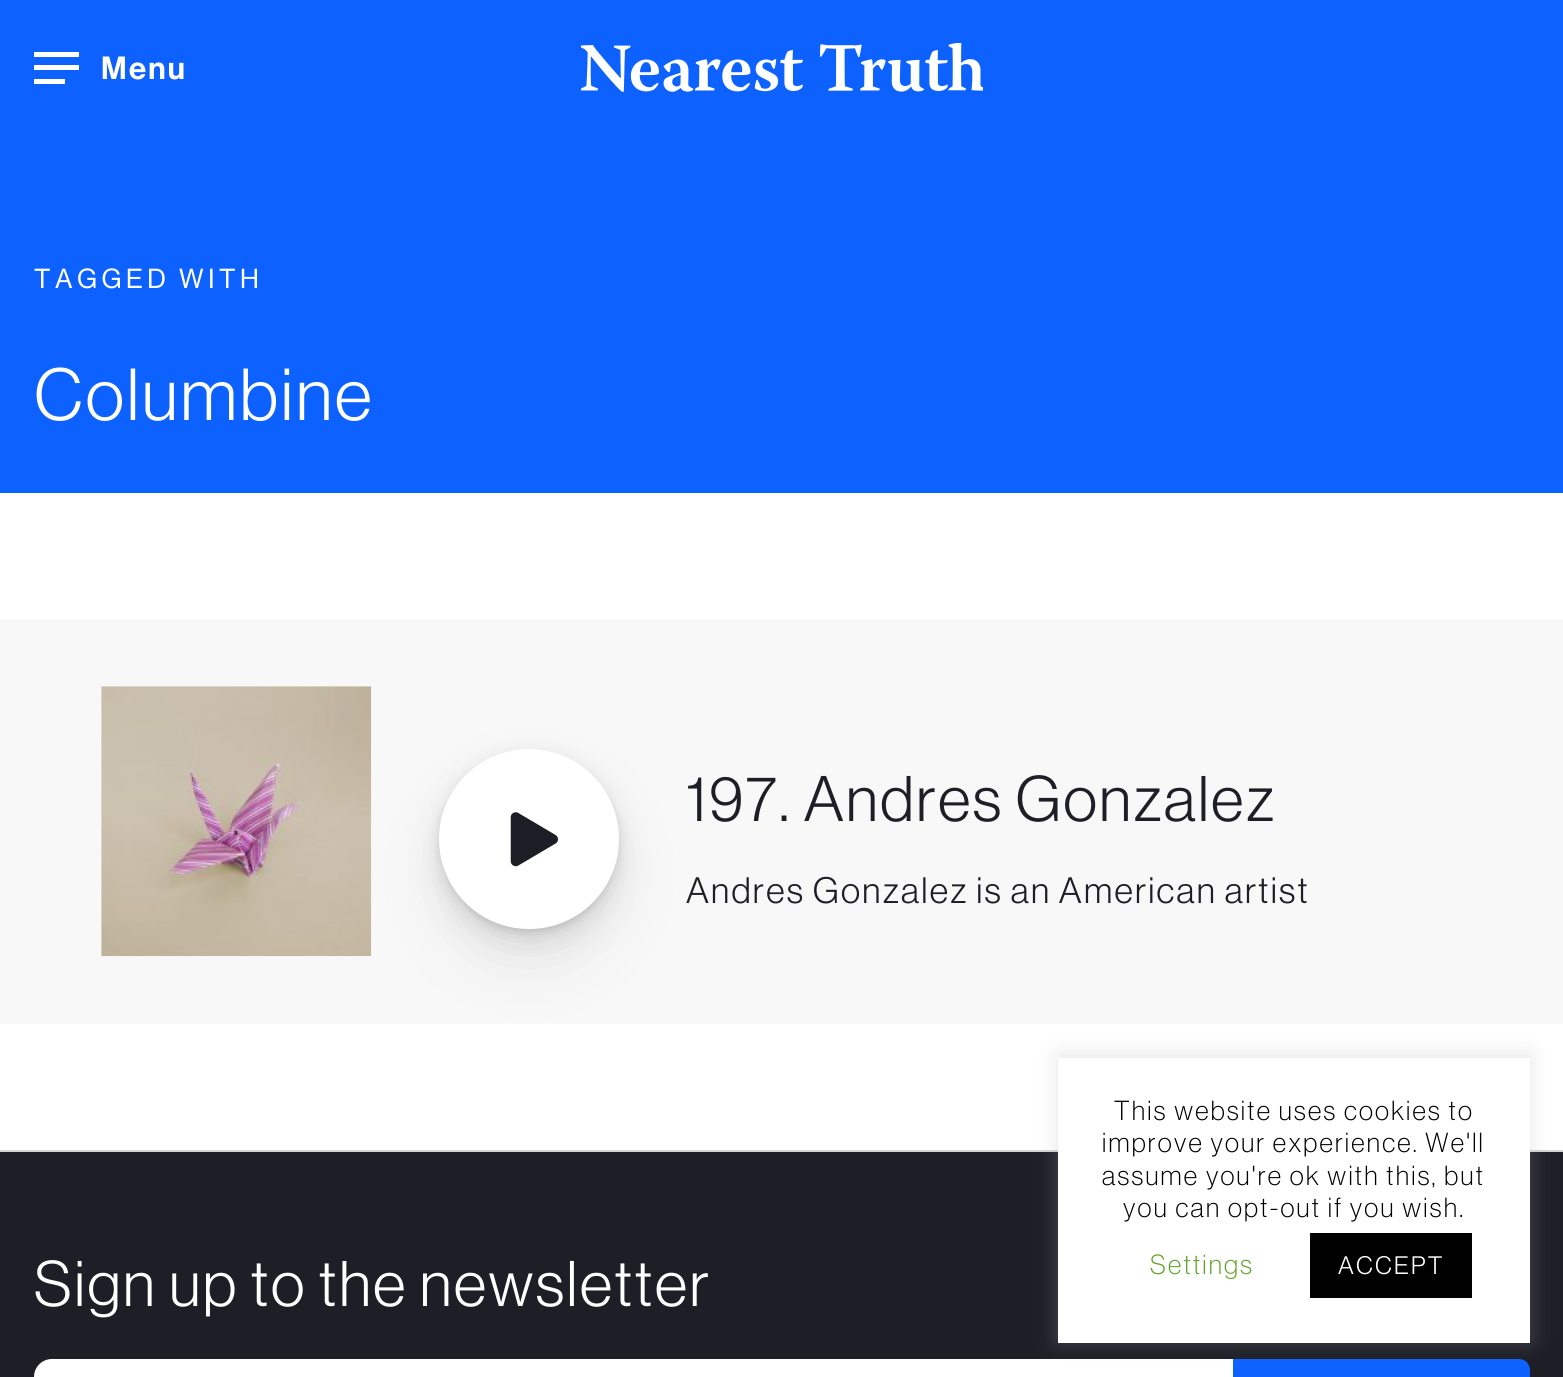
#include <cairo.h>
#include <math.h>
#include <stddef.h>

static cairo_t *ctx;

static void use_color(int r, int g, int b) {
    cairo_set_source_rgb(ctx, r / 255.0, g / 255.0, b / 255.0);
}

static void spaced_text(double x, double y, const char *s, double letter, double word) {
    cairo_move_to(ctx, x, y);
    while (*s) {
        char ch[5] = {0};
        int n = 0;
        do ch[n++] = *s++; while ((*s & 0xC0) == 0x80);
        cairo_show_text(ctx, ch);
        cairo_rel_move_to(ctx, letter + word * (*ch == ' '), 0);
    }
}

static void round_rect(double x, double y, double w, double h, double r) {
    cairo_new_sub_path(ctx);
    cairo_arc(ctx, x + w - r, y + h - r, r, 0, M_PI / 2);
    cairo_arc(ctx, x + r, y + h - r, r, M_PI / 2, M_PI);
    cairo_arc(ctx, x + r, y + r, r, M_PI, 1.5 * M_PI);
    cairo_arc(ctx, x + w - r, y + r, r, 1.5 * M_PI, 2 * M_PI);
    cairo_close_path(ctx);
}

static void shadow(double x, double y, double w, double h, double r, double blur, double alpha) {
    cairo_push_group_with_content(ctx, CAIRO_CONTENT_ALPHA);
    cairo_set_operator(ctx, CAIRO_OPERATOR_SOURCE);
    for (int i = 15; i >= -15 && fmin(w, h) + blur * i / 3 > 0; i -= 2) {
        double e = blur * i / 6;
        cairo_set_source_rgba(ctx, 0, 0, 0, alpha * erfc((i - 1) / 8.5) / 2);
        round_rect(x - e, y - e, w + 2 * e, h + 2 * e, fmax(0, fmin(r + e + blur * .6, fmin(w, h) / 2 + e)));
        cairo_fill(ctx);
    }
    cairo_pattern_t *soft = cairo_pop_group(ctx);
    cairo_mask(ctx, soft);
    cairo_pattern_destroy(soft);
}

static void picture(const char *path, double x, double y, double w, double h) {
    cairo_surface_t *image = cairo_image_surface_create_from_png(path);
    cairo_save(ctx);
    cairo_set_source_surface(ctx, image, x, y);
    cairo_rectangle(ctx, x, y, w, h);
    cairo_fill(ctx);
    cairo_restore(ctx);
    cairo_surface_destroy(image);
}

int main(void) {
    cairo_surface_t *surface = cairo_image_surface_create(CAIRO_FORMAT_RGB24, 1563, 1377);
    ctx = cairo_create(surface);
    cairo_font_options_t *options = cairo_font_options_create();
    cairo_font_options_set_hint_metrics(options, CAIRO_HINT_METRICS_OFF);
    cairo_font_options_set_hint_style(options, CAIRO_HINT_STYLE_NONE);
    cairo_set_font_options(ctx, options);
    cairo_set_miter_limit(ctx, 4);
    use_color(255, 255, 255);
    cairo_paint(ctx);
    use_color(13, 98, 255);
    cairo_rectangle(ctx, 0, 0, 1563, 493);
    cairo_fill(ctx);
    use_color(255, 255, 255);
    cairo_rectangle(ctx, 34, 65, 45, 5);
    cairo_fill(ctx);
    cairo_rectangle(ctx, 34, 52, 45, 5);
    cairo_fill(ctx);
    cairo_rectangle(ctx, 34, 79, 31, 5);
    cairo_fill(ctx);
    cairo_select_font_face(ctx, "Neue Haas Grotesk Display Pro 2 Medium", CAIRO_FONT_SLANT_NORMAL, CAIRO_FONT_WEIGHT_NORMAL);
    cairo_set_font_size(ctx, 31.5);
    spaced_text(101, 79, "Menu", 2.25, 0);
    picture("img1.png", 581, 43, 402, 49);
    cairo_select_font_face(ctx, "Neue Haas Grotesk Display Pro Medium", CAIRO_FONT_SLANT_NORMAL, CAIRO_FONT_WEIGHT_NORMAL);
    cairo_set_font_size(ctx, 27);
    spaced_text(34, 288, "TAGGED WITH", 4.5, 0);
    cairo_select_font_face(ctx, "Neue Haas Grotesk Display Pro", CAIRO_FONT_SLANT_NORMAL, CAIRO_FONT_WEIGHT_NORMAL);
    cairo_set_font_size(ctx, 72);
    spaced_text(34, 420, "Columbine", 2.9, 0);
    use_color(248, 248, 248);
    cairo_rectangle(ctx, 0, 619, 1563, 405);
    cairo_fill(ctx);
    use_color(244, 244, 244);
    cairo_rectangle(ctx, 101, 686, 270, 270);
    cairo_fill(ctx);
    picture("img2.png", 101, 686, 271, 271);
    use_color(0, 0, 0);
    shadow(439, 783, 180, 180, 90, 37.5, 0.06);
    shadow(439, 767, 180, 180, 90, 20, 0.06);
    shadow(439, 758, 180, 180, 90, 11, 0.06);
    shadow(439, 754, 180, 180, 90, 6, 0.06);
    shadow(439, 752, 180, 180, 90, 2.5, 0.05);
    use_color(255, 255, 255);
    cairo_arc(ctx, 529, 839, 90, 0, 2 * M_PI);
    cairo_fill(ctx);
    picture("img3.png", 510, 812, 48, 55);
    cairo_set_font_size(ctx, 63);
    use_color(30, 30, 39);
    spaced_text(686, 821, "197. Andres Gonzalez", 2.5, 0);
    cairo_set_font_size(ctx, 36);
    spaced_text(686, 903, "Andres Gonzalez is an American artist", 2.25, 0);
    cairo_rectangle(ctx, 0, 1152, 1563, 225);
    cairo_fill(ctx);
    use_color(212, 212, 212);
    cairo_rectangle(ctx, 0, 1150, 1563, 2);
    cairo_fill(ctx);
    cairo_set_font_size(ctx, 63);
    use_color(255, 255, 255);
    spaced_text(34, 1306, "Sign up to the newsletter", 2.5, 0);
    cairo_new_path(ctx);
    cairo_move_to(ctx, 52, 1359);
    cairo_line_to(ctx, 1233, 1359);
    cairo_line_to(ctx, 1233, 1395);
    cairo_line_to(ctx, 52, 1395);
    cairo_curve_to(ctx, 42, 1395, 34, 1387, 34, 1377);
    cairo_curve_to(ctx, 34, 1367, 42, 1359, 52, 1359);
    cairo_close_path(ctx);
    cairo_fill(ctx);
    use_color(13, 98, 255);
    cairo_new_path(ctx);
    cairo_move_to(ctx, 1233, 1359);
    cairo_line_to(ctx, 1519, 1359);
    cairo_curve_to(ctx, 1525, 1359, 1530, 1364, 1530, 1370);
    cairo_line_to(ctx, 1530, 1377);
    cairo_curve_to(ctx, 1530, 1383, 1525, 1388, 1519, 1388);
    cairo_line_to(ctx, 1233, 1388);
    cairo_close_path(ctx);
    cairo_fill(ctx);
    use_color(172, 171, 171);
    shadow(1058, 1055, 472, 286, 0, 11, 0.3);
    use_color(255, 255, 255);
    cairo_rectangle(ctx, 1058, 1058, 472, 285);
    cairo_fill(ctx);
    cairo_select_font_face(ctx, "Neue Haas Grotesk Display Pro 2", CAIRO_FONT_SLANT_NORMAL, CAIRO_FONT_WEIGHT_NORMAL);
    cairo_set_font_size(ctx, 27);
    use_color(0, 0, 0);
    spaced_text(1114, 1120, "This website uses cookies to", 2.25, 0);
    spaced_text(1102, 1152, "improve your experience. We'll", 2.25, 0);
    spaced_text(1102, 1185, "assume you're ok with this, but", 2.25, 0);
    spaced_text(1123, 1217, "you can opt-out if you wish.", 2.25, 0);
    use_color(98, 163, 41);
    spaced_text(1150, 1274, "Settings", 2.25, 0);
    use_color(0, 0, 0);
    cairo_rectangle(ctx, 1310, 1233, 162, 65);
    cairo_fill(ctx);
    cairo_select_font_face(ctx, "Neue Haas Grotesk Display Pro", CAIRO_FONT_SLANT_NORMAL, CAIRO_FONT_WEIGHT_NORMAL);
    cairo_set_font_size(ctx, 24.75);
    use_color(255, 255, 255);
    spaced_text(1338, 1274, "ACCEPT", 2.25, 0);
    cairo_surface_write_to_png(surface, "result.png");
    cairo_font_options_destroy(options);
    cairo_destroy(ctx);
    cairo_surface_destroy(surface);
    return 0;
}
